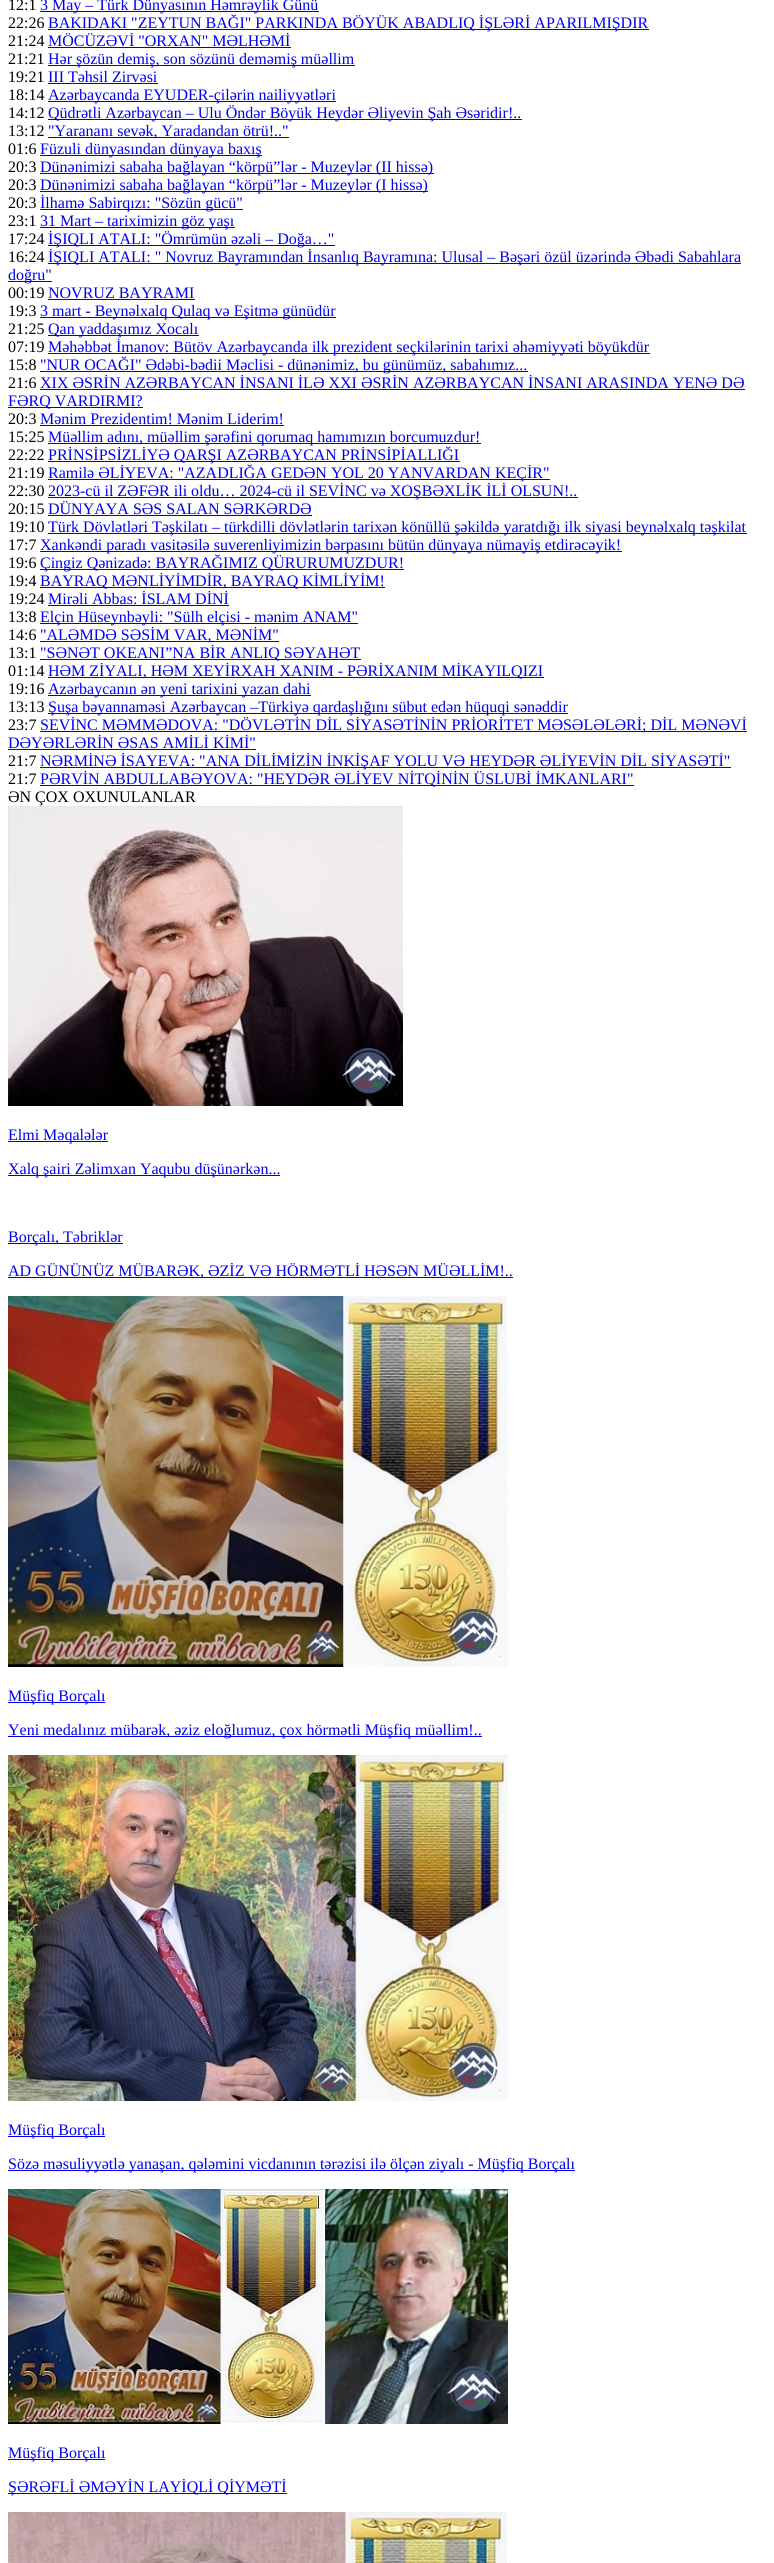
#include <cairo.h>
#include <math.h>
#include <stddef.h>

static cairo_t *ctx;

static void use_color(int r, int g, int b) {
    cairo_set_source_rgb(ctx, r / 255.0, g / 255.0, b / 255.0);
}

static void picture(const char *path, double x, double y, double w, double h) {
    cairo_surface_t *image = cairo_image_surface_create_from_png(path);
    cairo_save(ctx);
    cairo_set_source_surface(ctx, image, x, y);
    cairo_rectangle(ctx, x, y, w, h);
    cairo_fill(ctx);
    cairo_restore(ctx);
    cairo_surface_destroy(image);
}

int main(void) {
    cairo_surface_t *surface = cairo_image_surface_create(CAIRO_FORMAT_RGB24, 774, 2563);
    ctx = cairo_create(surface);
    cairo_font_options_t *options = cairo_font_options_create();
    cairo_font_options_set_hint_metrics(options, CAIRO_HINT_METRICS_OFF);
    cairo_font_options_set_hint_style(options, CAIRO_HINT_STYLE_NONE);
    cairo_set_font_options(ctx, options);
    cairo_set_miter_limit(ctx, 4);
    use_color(255, 255, 255);
    cairo_paint(ctx);
    cairo_select_font_face(ctx, "Liberation Serif", CAIRO_FONT_SLANT_NORMAL, CAIRO_FONT_WEIGHT_NORMAL);
    cairo_set_font_size(ctx, 16);
    use_color(0, 0, 0);
    cairo_move_to(ctx, 8, 10);
    cairo_show_text(ctx, "12:1");
    use_color(0, 0, 238);
    cairo_rectangle(ctx, 40, 11, 279, 1);
    cairo_fill(ctx);
    cairo_move_to(ctx, 40, 10);
    cairo_show_text(ctx, "3 May – Türk Dünyasının Həmrəylik Günü");
    use_color(0, 0, 0);
    cairo_move_to(ctx, 8, 28);
    cairo_show_text(ctx, "22:26");
    use_color(0, 0, 238);
    cairo_rectangle(ctx, 48, 29, 601, 1);
    cairo_fill(ctx);
    cairo_move_to(ctx, 48, 28);
    cairo_show_text(ctx, "BAKIDAKI \"ZEYTUN BAĞI\" PARKINDA BÖYÜK ABADLIQ İŞLƏRİ APARILMIŞDIR");
    use_color(0, 0, 0);
    cairo_move_to(ctx, 8, 46);
    cairo_show_text(ctx, "21:24");
    use_color(0, 0, 238);
    cairo_move_to(ctx, 48, 46);
    cairo_show_text(ctx, "MÖCÜZƏVİ \"ORXAN\" MƏLHƏMİ");
    cairo_rectangle(ctx, 48, 47, 243, 1);
    cairo_fill(ctx);
    use_color(0, 0, 0);
    cairo_move_to(ctx, 8, 64);
    cairo_show_text(ctx, "21:21");
    use_color(0, 0, 238);
    cairo_rectangle(ctx, 48, 65, 307, 1);
    cairo_fill(ctx);
    cairo_move_to(ctx, 48, 64);
    cairo_show_text(ctx, "Hər şözün demiş, son sözünü deməmiş müəllim");
    use_color(0, 0, 0);
    cairo_move_to(ctx, 8, 82);
    cairo_show_text(ctx, "19:21");
    use_color(0, 0, 238);
    cairo_move_to(ctx, 48, 82);
    cairo_show_text(ctx, "III Təhsil Zirvəsi");
    cairo_rectangle(ctx, 48, 83, 110, 1);
    cairo_fill(ctx);
    use_color(0, 0, 0);
    cairo_move_to(ctx, 8, 100);
    cairo_show_text(ctx, "18:14");
    use_color(0, 0, 238);
    cairo_rectangle(ctx, 48, 101, 288, 1);
    cairo_fill(ctx);
    cairo_move_to(ctx, 48, 100);
    cairo_show_text(ctx, "Azərbaycanda EYUDER-çilərin nailiyyətləri");
    use_color(0, 0, 0);
    cairo_move_to(ctx, 8, 118);
    cairo_show_text(ctx, "14:12");
    use_color(0, 0, 238);
    cairo_rectangle(ctx, 48, 119, 474, 1);
    cairo_fill(ctx);
    cairo_move_to(ctx, 48, 118);
    cairo_show_text(ctx, "Qüdrətli Azərbaycan – Ulu Öndər Böyük Heydər Əliyevin Şah Əsəridir!..");
    use_color(0, 0, 0);
    cairo_move_to(ctx, 8, 136);
    cairo_show_text(ctx, "13:12");
    use_color(0, 0, 238);
    cairo_rectangle(ctx, 48, 137, 241, 1);
    cairo_fill(ctx);
    cairo_move_to(ctx, 48, 136);
    cairo_show_text(ctx, "\"Yarananı sevək, Yaradandan ötrü!..\"");
    use_color(0, 0, 0);
    cairo_move_to(ctx, 8, 154);
    cairo_show_text(ctx, "01:6");
    use_color(0, 0, 238);
    cairo_rectangle(ctx, 40, 155, 222, 1);
    cairo_fill(ctx);
    cairo_move_to(ctx, 40, 154);
    cairo_show_text(ctx, "Füzuli dünyasından dünyaya baxış");
    use_color(0, 0, 0);
    cairo_move_to(ctx, 8, 172);
    cairo_show_text(ctx, "20:3");
    use_color(0, 0, 238);
    cairo_rectangle(ctx, 40, 173, 394, 1);
    cairo_fill(ctx);
    cairo_move_to(ctx, 40, 172);
    cairo_show_text(ctx, "Dünənimizi sabaha bağlayan “körpü”lər - Muzeylər (II hissə)");
    use_color(0, 0, 0);
    cairo_move_to(ctx, 8, 190);
    cairo_show_text(ctx, "20:3");
    use_color(0, 0, 238);
    cairo_rectangle(ctx, 40, 191, 388, 1);
    cairo_fill(ctx);
    cairo_move_to(ctx, 40, 190);
    cairo_show_text(ctx, "Dünənimizi sabaha bağlayan “körpü”lər - Muzeylər (I hissə)");
    use_color(0, 0, 0);
    cairo_move_to(ctx, 8, 208);
    cairo_show_text(ctx, "20:3");
    use_color(0, 0, 238);
    cairo_rectangle(ctx, 40, 209, 203, 1);
    cairo_fill(ctx);
    cairo_move_to(ctx, 40, 208);
    cairo_show_text(ctx, "İlhamə Sabirqızı: \"Sözün gücü\"");
    use_color(0, 0, 0);
    cairo_move_to(ctx, 8, 226);
    cairo_show_text(ctx, "23:1");
    use_color(0, 0, 238);
    cairo_rectangle(ctx, 40, 227, 195, 1);
    cairo_fill(ctx);
    cairo_move_to(ctx, 40, 226);
    cairo_show_text(ctx, "31 Mart – tariximizin göz yaşı");
    use_color(0, 0, 0);
    cairo_move_to(ctx, 8, 244);
    cairo_show_text(ctx, "17:24");
    use_color(0, 0, 238);
    cairo_rectangle(ctx, 48, 245, 287, 1);
    cairo_fill(ctx);
    cairo_move_to(ctx, 48, 244);
    cairo_show_text(ctx, "İŞIQLI ATALI: \"Ömrümün əzəli – Doğa…\"");
    use_color(0, 0, 0);
    cairo_move_to(ctx, 8, 262);
    cairo_show_text(ctx, "16:24");
    use_color(0, 0, 238);
    cairo_rectangle(ctx, 48, 263, 693, 1);
    cairo_fill(ctx);
    cairo_move_to(ctx, 48, 262);
    cairo_show_text(ctx, "İŞIQLI ATALI: \" Novruz Bayramından İnsanlıq Bayramına: Ulusal – Bəşəri özül üzərində Əbədi Sabahlara");
    cairo_rectangle(ctx, 8, 281, 44, 1);
    cairo_fill(ctx);
    cairo_move_to(ctx, 8, 280);
    cairo_show_text(ctx, "doğru\"");
    use_color(0, 0, 0);
    cairo_move_to(ctx, 8, 298);
    cairo_show_text(ctx, "00:19");
    use_color(0, 0, 238);
    cairo_move_to(ctx, 48, 298);
    cairo_show_text(ctx, "NOVRUZ BAYRAMI");
    cairo_rectangle(ctx, 48, 299, 147, 1);
    cairo_fill(ctx);
    use_color(0, 0, 0);
    cairo_move_to(ctx, 8, 316);
    cairo_show_text(ctx, "19:3");
    use_color(0, 0, 238);
    cairo_rectangle(ctx, 40, 317, 296, 1);
    cairo_fill(ctx);
    cairo_move_to(ctx, 40, 316);
    cairo_show_text(ctx, "3 mart - Beynəlxalq Qulaq və Eşitmə günüdür");
    use_color(0, 0, 0);
    cairo_move_to(ctx, 8, 334);
    cairo_show_text(ctx, "21:25");
    use_color(0, 0, 238);
    cairo_rectangle(ctx, 48, 335, 151, 1);
    cairo_fill(ctx);
    cairo_move_to(ctx, 48, 334);
    cairo_show_text(ctx, "Qan yaddaşımız Xocalı");
    use_color(0, 0, 0);
    cairo_move_to(ctx, 8, 352);
    cairo_show_text(ctx, "07:19");
    use_color(0, 0, 238);
    cairo_rectangle(ctx, 48, 353, 602, 1);
    cairo_fill(ctx);
    cairo_move_to(ctx, 48, 352);
    cairo_show_text(ctx, "Məhəbbət İmanov: Bütöv Azərbaycanda ilk prezident seçkilərinin tarixi əhəmiyyəti böyükdür");
    use_color(0, 0, 0);
    cairo_move_to(ctx, 8, 370);
    cairo_show_text(ctx, "15:8");
    use_color(0, 0, 238);
    cairo_rectangle(ctx, 40, 371, 488, 1);
    cairo_fill(ctx);
    cairo_move_to(ctx, 40, 370);
    cairo_show_text(ctx, "\"NUR OCAĞI\" Ədəbi-bədii Məclisi - dünənimiz, bu günümüz, sabahımız...");
    use_color(0, 0, 0);
    cairo_move_to(ctx, 8, 388);
    cairo_show_text(ctx, "21:6");
    use_color(0, 0, 238);
    cairo_move_to(ctx, 40, 388);
    cairo_show_text(ctx, "XIX ƏSRİN AZƏRBAYCAN İNSANI İLƏ XXI ƏSRİN AZƏRBAYCAN İNSANI ARASINDA YENƏ DƏ");
    cairo_rectangle(ctx, 40, 389, 705, 1);
    cairo_fill(ctx);
    cairo_rectangle(ctx, 8, 407, 135, 1);
    cairo_fill(ctx);
    cairo_move_to(ctx, 8, 406);
    cairo_show_text(ctx, "FƏRQ VARDIRMI?");
    use_color(0, 0, 0);
    cairo_move_to(ctx, 8, 424);
    cairo_show_text(ctx, "20:3");
    use_color(0, 0, 238);
    cairo_move_to(ctx, 40, 424);
    cairo_show_text(ctx, "Mənim Prezidentim! Mənim Liderim!");
    cairo_rectangle(ctx, 40, 425, 244, 1);
    cairo_fill(ctx);
    use_color(0, 0, 0);
    cairo_move_to(ctx, 8, 442);
    cairo_show_text(ctx, "15:25");
    use_color(0, 0, 238);
    cairo_rectangle(ctx, 48, 443, 433, 1);
    cairo_fill(ctx);
    cairo_move_to(ctx, 48, 442);
    cairo_show_text(ctx, "Müəllim adını, müəllim şərəfini qorumaq hamımızın borcumuzdur!");
    use_color(0, 0, 0);
    cairo_move_to(ctx, 8, 460);
    cairo_show_text(ctx, "22:22");
    use_color(0, 0, 238);
    cairo_rectangle(ctx, 48, 461, 412, 1);
    cairo_fill(ctx);
    cairo_move_to(ctx, 48, 460);
    cairo_show_text(ctx, "PRİNSİPSİZLİYƏ QARŞI AZƏRBAYCAN PRİNSİPİALLIĞI");
    use_color(0, 0, 0);
    cairo_move_to(ctx, 8, 478);
    cairo_show_text(ctx, "21:19");
    use_color(0, 0, 238);
    cairo_rectangle(ctx, 48, 479, 502, 1);
    cairo_fill(ctx);
    cairo_move_to(ctx, 48, 478);
    cairo_show_text(ctx, "Ramilə ƏLİYEVA: \"AZADLIĞA GEDƏN YOL 20 YANVARDAN KEÇİR\"");
    use_color(0, 0, 0);
    cairo_move_to(ctx, 8, 496);
    cairo_show_text(ctx, "22:30");
    use_color(0, 0, 238);
    cairo_rectangle(ctx, 48, 497, 530, 1);
    cairo_fill(ctx);
    cairo_move_to(ctx, 48, 496);
    cairo_show_text(ctx, "2023-cü il ZƏFƏR ili oldu… 2024-cü il SEVİNC və XOŞBƏXLİK İLİ OLSUN!..");
    use_color(0, 0, 0);
    cairo_move_to(ctx, 8, 514);
    cairo_show_text(ctx, "20:15");
    use_color(0, 0, 238);
    cairo_move_to(ctx, 48, 514);
    cairo_show_text(ctx, "DÜNYAYA SƏS SALAN SƏRKƏRDƏ");
    cairo_rectangle(ctx, 48, 515, 264, 1);
    cairo_fill(ctx);
    use_color(0, 0, 0);
    cairo_move_to(ctx, 8, 532);
    cairo_show_text(ctx, "19:10");
    use_color(0, 0, 238);
    cairo_rectangle(ctx, 48, 533, 699, 1);
    cairo_fill(ctx);
    cairo_move_to(ctx, 48, 532);
    cairo_show_text(ctx, "Türk Dövlətləri Təşkilatı – türkdilli dövlətlərin tarixən könüllü şəkildə yaratdığı ilk siyasi beynəlxalq təşkilat");
    use_color(0, 0, 0);
    cairo_move_to(ctx, 8, 550);
    cairo_show_text(ctx, "17:7");
    use_color(0, 0, 238);
    cairo_rectangle(ctx, 40, 551, 582, 1);
    cairo_fill(ctx);
    cairo_move_to(ctx, 40, 550);
    cairo_show_text(ctx, "Xankəndi paradı vasitəsilə suverenliyimizin bərpasını bütün dünyaya nümayiş etdirəcəyik!");
    use_color(0, 0, 0);
    cairo_move_to(ctx, 8, 568);
    cairo_show_text(ctx, "19:6");
    use_color(0, 0, 238);
    cairo_rectangle(ctx, 40, 569, 364, 1);
    cairo_fill(ctx);
    cairo_move_to(ctx, 40, 568);
    cairo_show_text(ctx, "Çingiz Qənizadə: BAYRAĞIMIZ QÜRURUMUZDUR!");
    use_color(0, 0, 0);
    cairo_move_to(ctx, 8, 586);
    cairo_show_text(ctx, "19:4");
    use_color(0, 0, 238);
    cairo_rectangle(ctx, 40, 587, 345, 1);
    cairo_fill(ctx);
    cairo_move_to(ctx, 40, 586);
    cairo_show_text(ctx, "BAYRAQ MƏNLİYİMDİR, BAYRAQ KİMLİYİM!");
    use_color(0, 0, 0);
    cairo_move_to(ctx, 8, 604);
    cairo_show_text(ctx, "19:24");
    use_color(0, 0, 238);
    cairo_move_to(ctx, 48, 604);
    cairo_show_text(ctx, "Mirəli Abbas: İSLAM DİNİ");
    cairo_rectangle(ctx, 48, 605, 181, 1);
    cairo_fill(ctx);
    use_color(0, 0, 0);
    cairo_move_to(ctx, 8, 622);
    cairo_show_text(ctx, "13:8");
    use_color(0, 0, 238);
    cairo_rectangle(ctx, 40, 623, 318, 1);
    cairo_fill(ctx);
    cairo_move_to(ctx, 40, 622);
    cairo_show_text(ctx, "Elçin Hüseynbəyli: \"Sülh elçisi - mənim ANAM\"");
    use_color(0, 0, 0);
    cairo_move_to(ctx, 8, 640);
    cairo_show_text(ctx, "14:6");
    use_color(0, 0, 238);
    cairo_rectangle(ctx, 40, 641, 239, 1);
    cairo_fill(ctx);
    cairo_move_to(ctx, 40, 640);
    cairo_show_text(ctx, "\"ALƏMDƏ SƏSİM VAR, MƏNİM\"");
    use_color(0, 0, 0);
    cairo_move_to(ctx, 8, 658);
    cairo_show_text(ctx, "13:1");
    use_color(0, 0, 238);
    cairo_rectangle(ctx, 40, 659, 321, 1);
    cairo_fill(ctx);
    cairo_move_to(ctx, 40, 658);
    cairo_show_text(ctx, "\"SƏNƏT OKEANI”NA BİR ANLIQ SƏYAHƏT");
    use_color(0, 0, 0);
    cairo_move_to(ctx, 8, 676);
    cairo_show_text(ctx, "01:14");
    use_color(0, 0, 238);
    cairo_rectangle(ctx, 48, 677, 496, 1);
    cairo_fill(ctx);
    cairo_move_to(ctx, 48, 676);
    cairo_show_text(ctx, "HƏM ZİYALI, HƏM XEYİRXAH XANIM - PƏRİXANIM MİKAYILQIZI");
    use_color(0, 0, 0);
    cairo_move_to(ctx, 8, 694);
    cairo_show_text(ctx, "19:16");
    use_color(0, 0, 238);
    cairo_rectangle(ctx, 48, 695, 263, 1);
    cairo_fill(ctx);
    cairo_move_to(ctx, 48, 694);
    cairo_show_text(ctx, "Azərbaycanın ən yeni tarixini yazan dahi");
    use_color(0, 0, 0);
    cairo_move_to(ctx, 8, 712);
    cairo_show_text(ctx, "13:13");
    use_color(0, 0, 238);
    cairo_rectangle(ctx, 48, 713, 520, 1);
    cairo_fill(ctx);
    cairo_move_to(ctx, 48, 712);
    cairo_show_text(ctx, "Şuşa bəyannaməsi Azərbaycan –Türkiyə qardaşlığını sübut edən hüquqi sənəddir");
    use_color(0, 0, 0);
    cairo_move_to(ctx, 8, 730);
    cairo_show_text(ctx, "23:7");
    use_color(0, 0, 238);
    cairo_rectangle(ctx, 40, 731, 707, 1);
    cairo_fill(ctx);
    cairo_move_to(ctx, 40, 730);
    cairo_show_text(ctx, "SEVİNC MƏMMƏDOVA: \"DÖVLƏTİN DİL SİYASƏTİNİN PRİORİTET MƏSƏLƏLƏRİ; DİL MƏNƏVİ");
    cairo_move_to(ctx, 8, 748);
    cairo_show_text(ctx, "DƏYƏRLƏRİN ƏSAS AMİLİ KİMİ\"");
    cairo_rectangle(ctx, 8, 749, 248, 1);
    cairo_fill(ctx);
    use_color(0, 0, 0);
    cairo_move_to(ctx, 8, 766);
    cairo_show_text(ctx, "21:7");
    use_color(0, 0, 238);
    cairo_rectangle(ctx, 40, 767, 691, 1);
    cairo_fill(ctx);
    cairo_move_to(ctx, 40, 766);
    cairo_show_text(ctx, "NƏRMİNƏ İSAYEVA: \"ANA DİLİMİZİN İNKİŞAF YOLU VƏ HEYDƏR ƏLİYEVİN DİL SİYASƏTİ\"");
    use_color(0, 0, 0);
    cairo_move_to(ctx, 8, 784);
    cairo_show_text(ctx, "21:7");
    use_color(0, 0, 238);
    cairo_rectangle(ctx, 40, 785, 594, 1);
    cairo_fill(ctx);
    cairo_move_to(ctx, 40, 784);
    cairo_show_text(ctx, "PƏRVİN ABDULLABƏYOVA: \"HEYDƏR ƏLİYEV NİTQİNİN ÜSLUBİ İMKANLARI\"");
    use_color(0, 0, 0);
    cairo_move_to(ctx, 8, 802);
    cairo_show_text(ctx, "ƏN ÇOX OXUNULANLAR");
    picture("img1.png", 8, 806, 395, 300);
    use_color(0, 0, 238);
    cairo_rectangle(ctx, 8, 1141, 100, 1);
    cairo_fill(ctx);
    cairo_move_to(ctx, 8, 1140);
    cairo_show_text(ctx, "Elmi Məqalələr");
    cairo_rectangle(ctx, 8, 1175, 272, 1);
    cairo_fill(ctx);
    cairo_move_to(ctx, 8, 1174);
    cairo_show_text(ctx, "Xalq şairi Zəlimxan Yaqubu düşünərkən...");
    cairo_rectangle(ctx, 8, 1243, 115, 1);
    cairo_fill(ctx);
    cairo_move_to(ctx, 8, 1242);
    cairo_show_text(ctx, "Borçalı, Təbriklər");
    cairo_rectangle(ctx, 8, 1277, 505, 1);
    cairo_fill(ctx);
    cairo_move_to(ctx, 8, 1276);
    cairo_show_text(ctx, "AD GÜNÜNÜZ MÜBARƏK, ƏZİZ VƏ HÖRMƏTLİ HƏSƏN MÜƏLLİM!..");
    picture("img2.png", 8, 1296, 500, 371);
    cairo_rectangle(ctx, 8, 1702, 97, 1);
    cairo_fill(ctx);
    cairo_move_to(ctx, 8, 1701);
    cairo_show_text(ctx, "Müşfiq Borçalı");
    cairo_rectangle(ctx, 8, 1736, 474, 1);
    cairo_fill(ctx);
    cairo_move_to(ctx, 8, 1735);
    cairo_show_text(ctx, "Yeni medalınız mübarək, əziz eloğlumuz, çox hörmətli Müşfiq müəllim!..");
    picture("img3.png", 8, 1755, 500, 346);
    cairo_rectangle(ctx, 8, 2136, 97, 1);
    cairo_fill(ctx);
    cairo_move_to(ctx, 8, 2135);
    cairo_show_text(ctx, "Müşfiq Borçalı");
    cairo_rectangle(ctx, 8, 2170, 567, 1);
    cairo_fill(ctx);
    cairo_move_to(ctx, 8, 2169);
    cairo_show_text(ctx, "Sözə məsuliyyətlə yanaşan, qələmini vicdanının tərəzisi ilə ölçən ziyalı - Müşfiq Borçalı");
    picture("img4.png", 8, 2189, 500, 235);
    cairo_rectangle(ctx, 8, 2459, 97, 1);
    cairo_fill(ctx);
    cairo_move_to(ctx, 8, 2458);
    cairo_show_text(ctx, "Müşfiq Borçalı");
    cairo_rectangle(ctx, 8, 2493, 279, 1);
    cairo_fill(ctx);
    cairo_move_to(ctx, 8, 2492);
    cairo_show_text(ctx, "ŞƏRƏFLİ ƏMƏYİN LAYİQLİ QİYMƏTİ");
    picture("img5.png", 8, 2512, 500, 51);
    cairo_surface_write_to_png(surface, "result.png");
    cairo_font_options_destroy(options);
    cairo_destroy(ctx);
    cairo_surface_destroy(surface);
    return 0;
}
